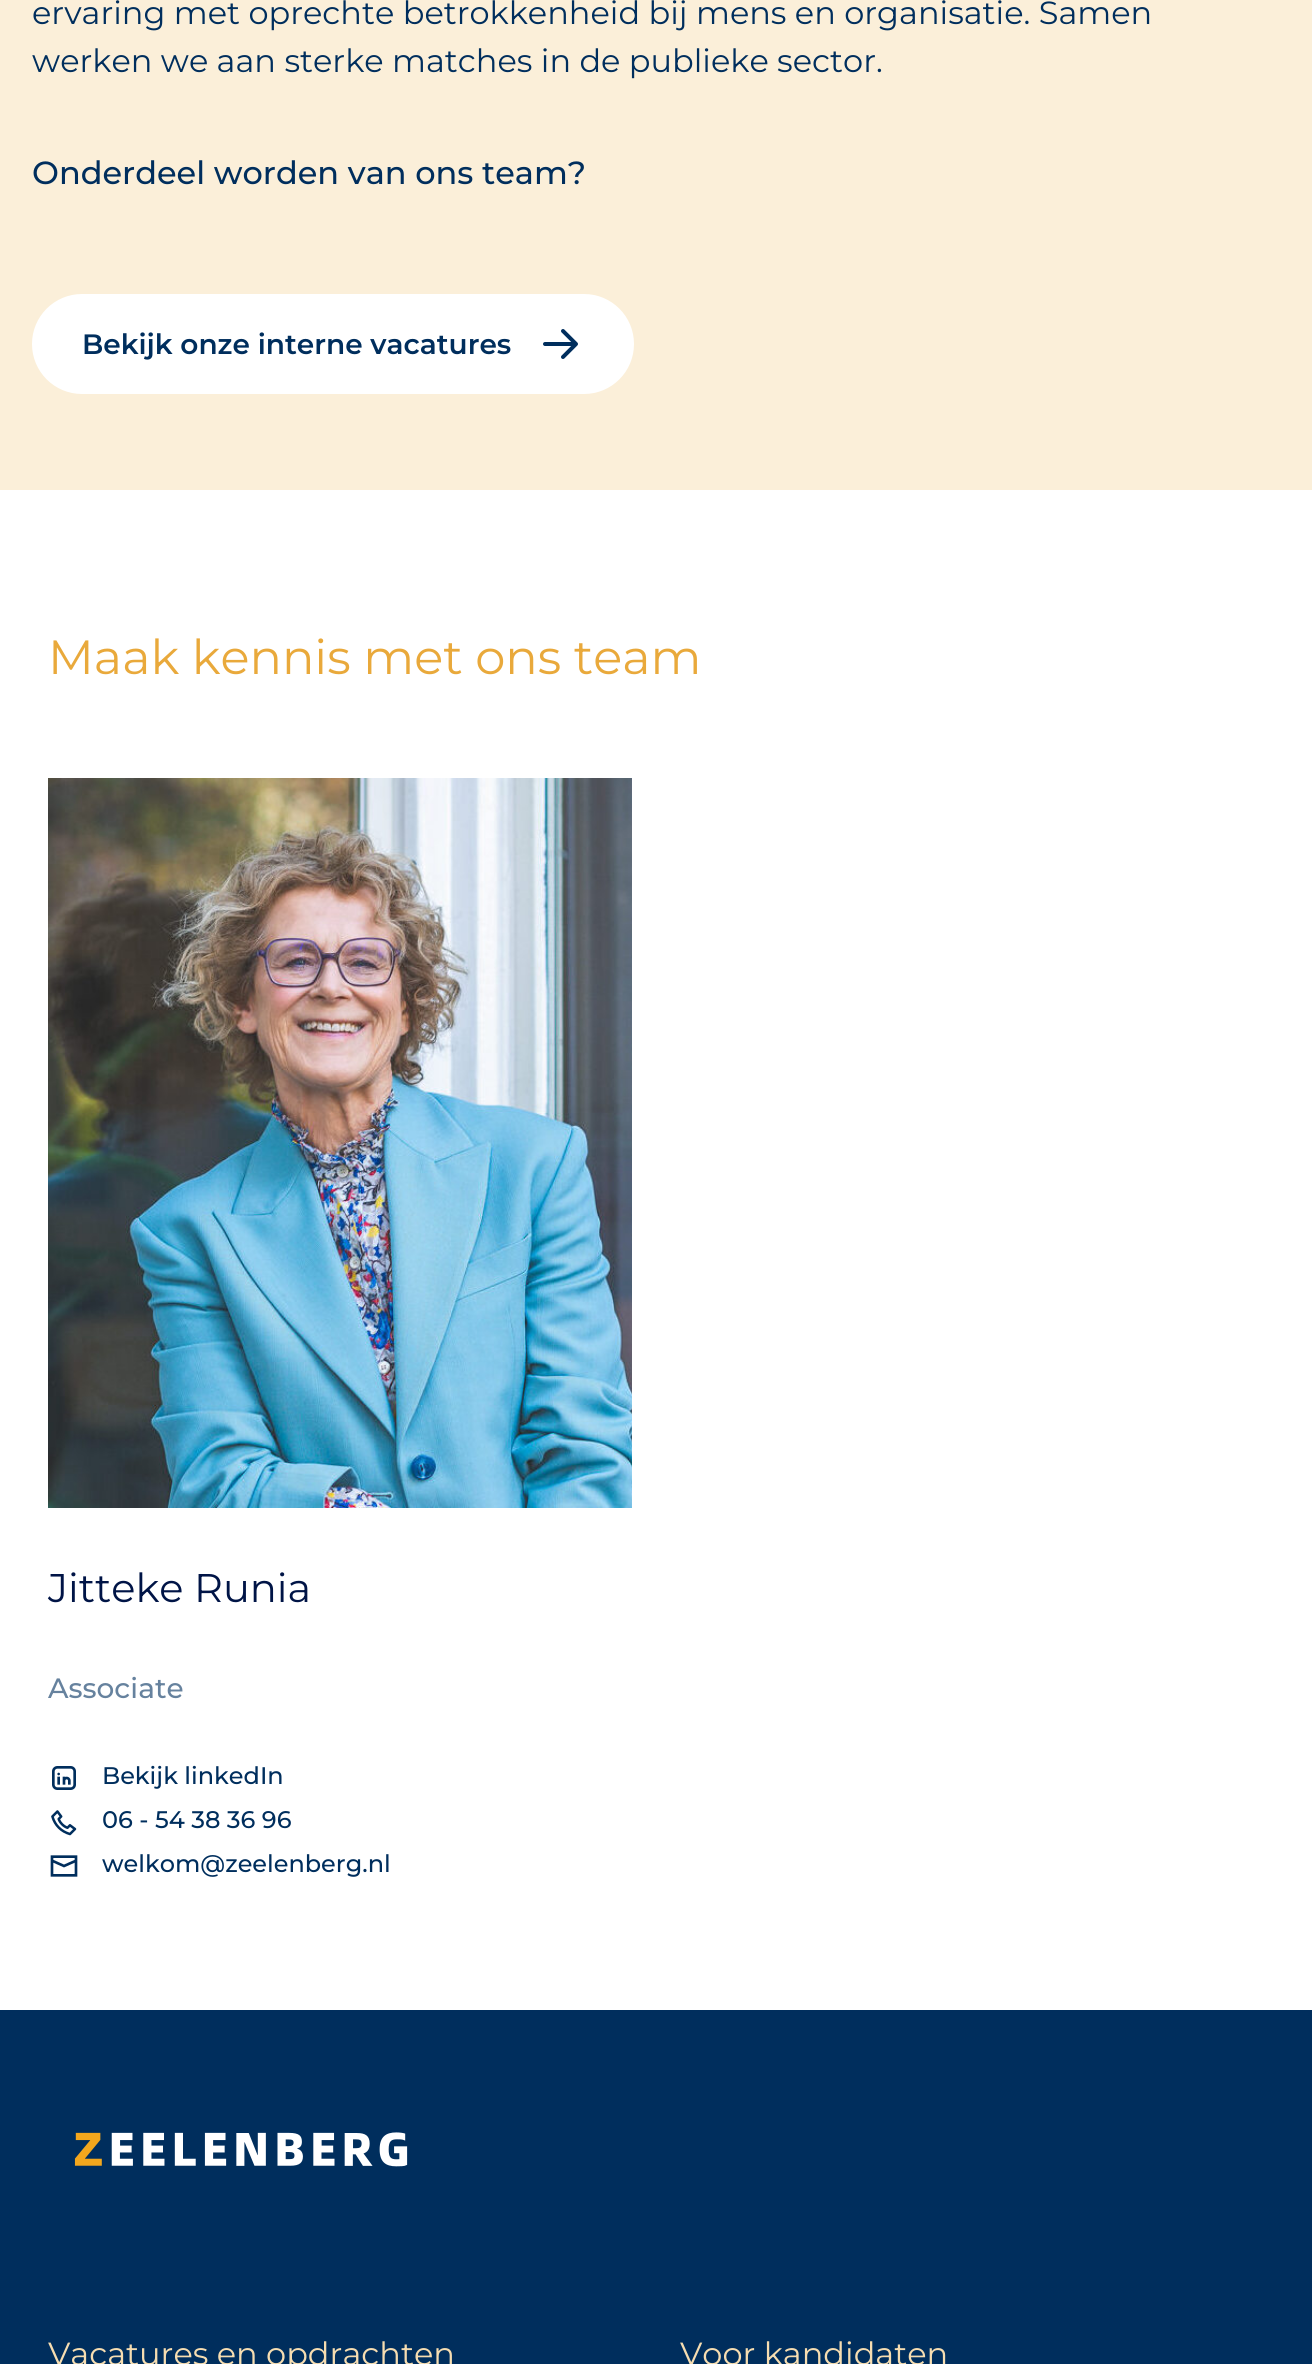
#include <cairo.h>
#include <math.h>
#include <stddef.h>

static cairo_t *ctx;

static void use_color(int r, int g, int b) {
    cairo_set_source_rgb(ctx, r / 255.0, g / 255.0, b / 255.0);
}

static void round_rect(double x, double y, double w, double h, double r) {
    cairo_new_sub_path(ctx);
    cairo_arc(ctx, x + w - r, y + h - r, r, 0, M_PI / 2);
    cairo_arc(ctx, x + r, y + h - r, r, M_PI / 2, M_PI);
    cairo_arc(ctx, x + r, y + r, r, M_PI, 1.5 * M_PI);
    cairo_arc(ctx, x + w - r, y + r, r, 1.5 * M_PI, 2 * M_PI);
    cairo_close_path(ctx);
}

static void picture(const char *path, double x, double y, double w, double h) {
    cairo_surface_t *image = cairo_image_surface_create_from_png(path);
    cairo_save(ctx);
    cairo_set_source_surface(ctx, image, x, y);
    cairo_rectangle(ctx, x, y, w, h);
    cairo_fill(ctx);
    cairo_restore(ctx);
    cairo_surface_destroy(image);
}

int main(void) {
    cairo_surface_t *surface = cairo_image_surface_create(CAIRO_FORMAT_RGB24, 1312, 2364);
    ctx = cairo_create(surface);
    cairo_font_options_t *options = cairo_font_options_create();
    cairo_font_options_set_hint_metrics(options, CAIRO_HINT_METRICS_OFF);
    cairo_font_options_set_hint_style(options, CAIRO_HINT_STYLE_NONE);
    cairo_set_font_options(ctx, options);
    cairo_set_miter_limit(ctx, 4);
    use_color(255, 255, 255);
    cairo_paint(ctx);
    use_color(251, 239, 217);
    cairo_rectangle(ctx, 0, 0, 1312, 490);
    cairo_fill(ctx);
    cairo_select_font_face(ctx, "Montserrat Thin", CAIRO_FONT_SLANT_NORMAL, CAIRO_FONT_WEIGHT_NORMAL);
    cairo_set_font_size(ctx, 32);
    use_color(0, 46, 93);
    cairo_move_to(ctx, 32, 24);
    cairo_show_text(ctx, "ervaring met oprechte betrokkenheid bij mens en organisatie. Samen");
    cairo_move_to(ctx, 32, 72);
    cairo_show_text(ctx, "werken we aan sterke matches in de publieke sector.");
    cairo_select_font_face(ctx, "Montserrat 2 Thin", CAIRO_FONT_SLANT_NORMAL, CAIRO_FONT_WEIGHT_NORMAL);
    cairo_move_to(ctx, 32, 184);
    cairo_show_text(ctx, "Onderdeel worden van ons team?");
    use_color(255, 255, 255);
    round_rect(33, 295, 600, 98, 49);
    cairo_fill_preserve(ctx);
    cairo_stroke(ctx);
    cairo_select_font_face(ctx, "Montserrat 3 Thin", CAIRO_FONT_SLANT_NORMAL, CAIRO_FONT_WEIGHT_NORMAL);
    cairo_set_font_size(ctx, 28);
    use_color(0, 46, 93);
    cairo_move_to(ctx, 82, 354);
    cairo_show_text(ctx, "Bekijk onze interne vacatures");
    picture("img1.png", 543, 329, 35, 30);
    cairo_select_font_face(ctx, "Montserrat Thin", CAIRO_FONT_SLANT_NORMAL, CAIRO_FONT_WEIGHT_NORMAL);
    cairo_set_font_size(ctx, 48);
    use_color(233, 169, 59);
    cairo_move_to(ctx, 48, 674);
    cairo_show_text(ctx, "Maak kennis met ons team");
    picture("img2.png", 48, 778, 584, 730);
    cairo_set_font_size(ctx, 40);
    use_color(0, 20, 70);
    cairo_move_to(ctx, 48, 1602);
    cairo_show_text(ctx, "Jitteke Runia");
    cairo_select_font_face(ctx, "Montserrat 2 Thin", CAIRO_FONT_SLANT_NORMAL, CAIRO_FONT_WEIGHT_NORMAL);
    cairo_set_font_size(ctx, 28);
    use_color(102, 130, 158);
    cairo_move_to(ctx, 48, 1698);
    cairo_show_text(ctx, "Associate");
    picture("img3.png", 52, 1766, 24, 24);
    cairo_set_font_size(ctx, 24);
    use_color(0, 46, 93);
    cairo_move_to(ctx, 102, 1784);
    cairo_show_text(ctx, "Bekijk linkedIn");
    picture("img4.png", 51, 1810, 26, 26);
    cairo_move_to(ctx, 102, 1828);
    cairo_show_text(ctx, "06 - 54 38 36 96");
    picture("img5.png", 50, 1855, 28, 22);
    cairo_move_to(ctx, 102, 1872);
    cairo_show_text(ctx, "welkom@zeelenberg.nl");
    cairo_rectangle(ctx, 0, 2010, 1312, 354);
    cairo_fill(ctx);
    picture("img6.png", 74, 2132, 334, 35);
    cairo_select_font_face(ctx, "Montserrat Thin", CAIRO_FONT_SLANT_NORMAL, CAIRO_FONT_WEIGHT_NORMAL);
    cairo_set_font_size(ctx, 32);
    use_color(246, 221, 177);
    cairo_move_to(ctx, 48, 2365);
    cairo_show_text(ctx, "Vacatures en opdrachten");
    cairo_move_to(ctx, 680, 2365);
    cairo_show_text(ctx, "Voor kandidaten");
    cairo_surface_write_to_png(surface, "result.png");
    cairo_font_options_destroy(options);
    cairo_destroy(ctx);
    cairo_surface_destroy(surface);
    return 0;
}
